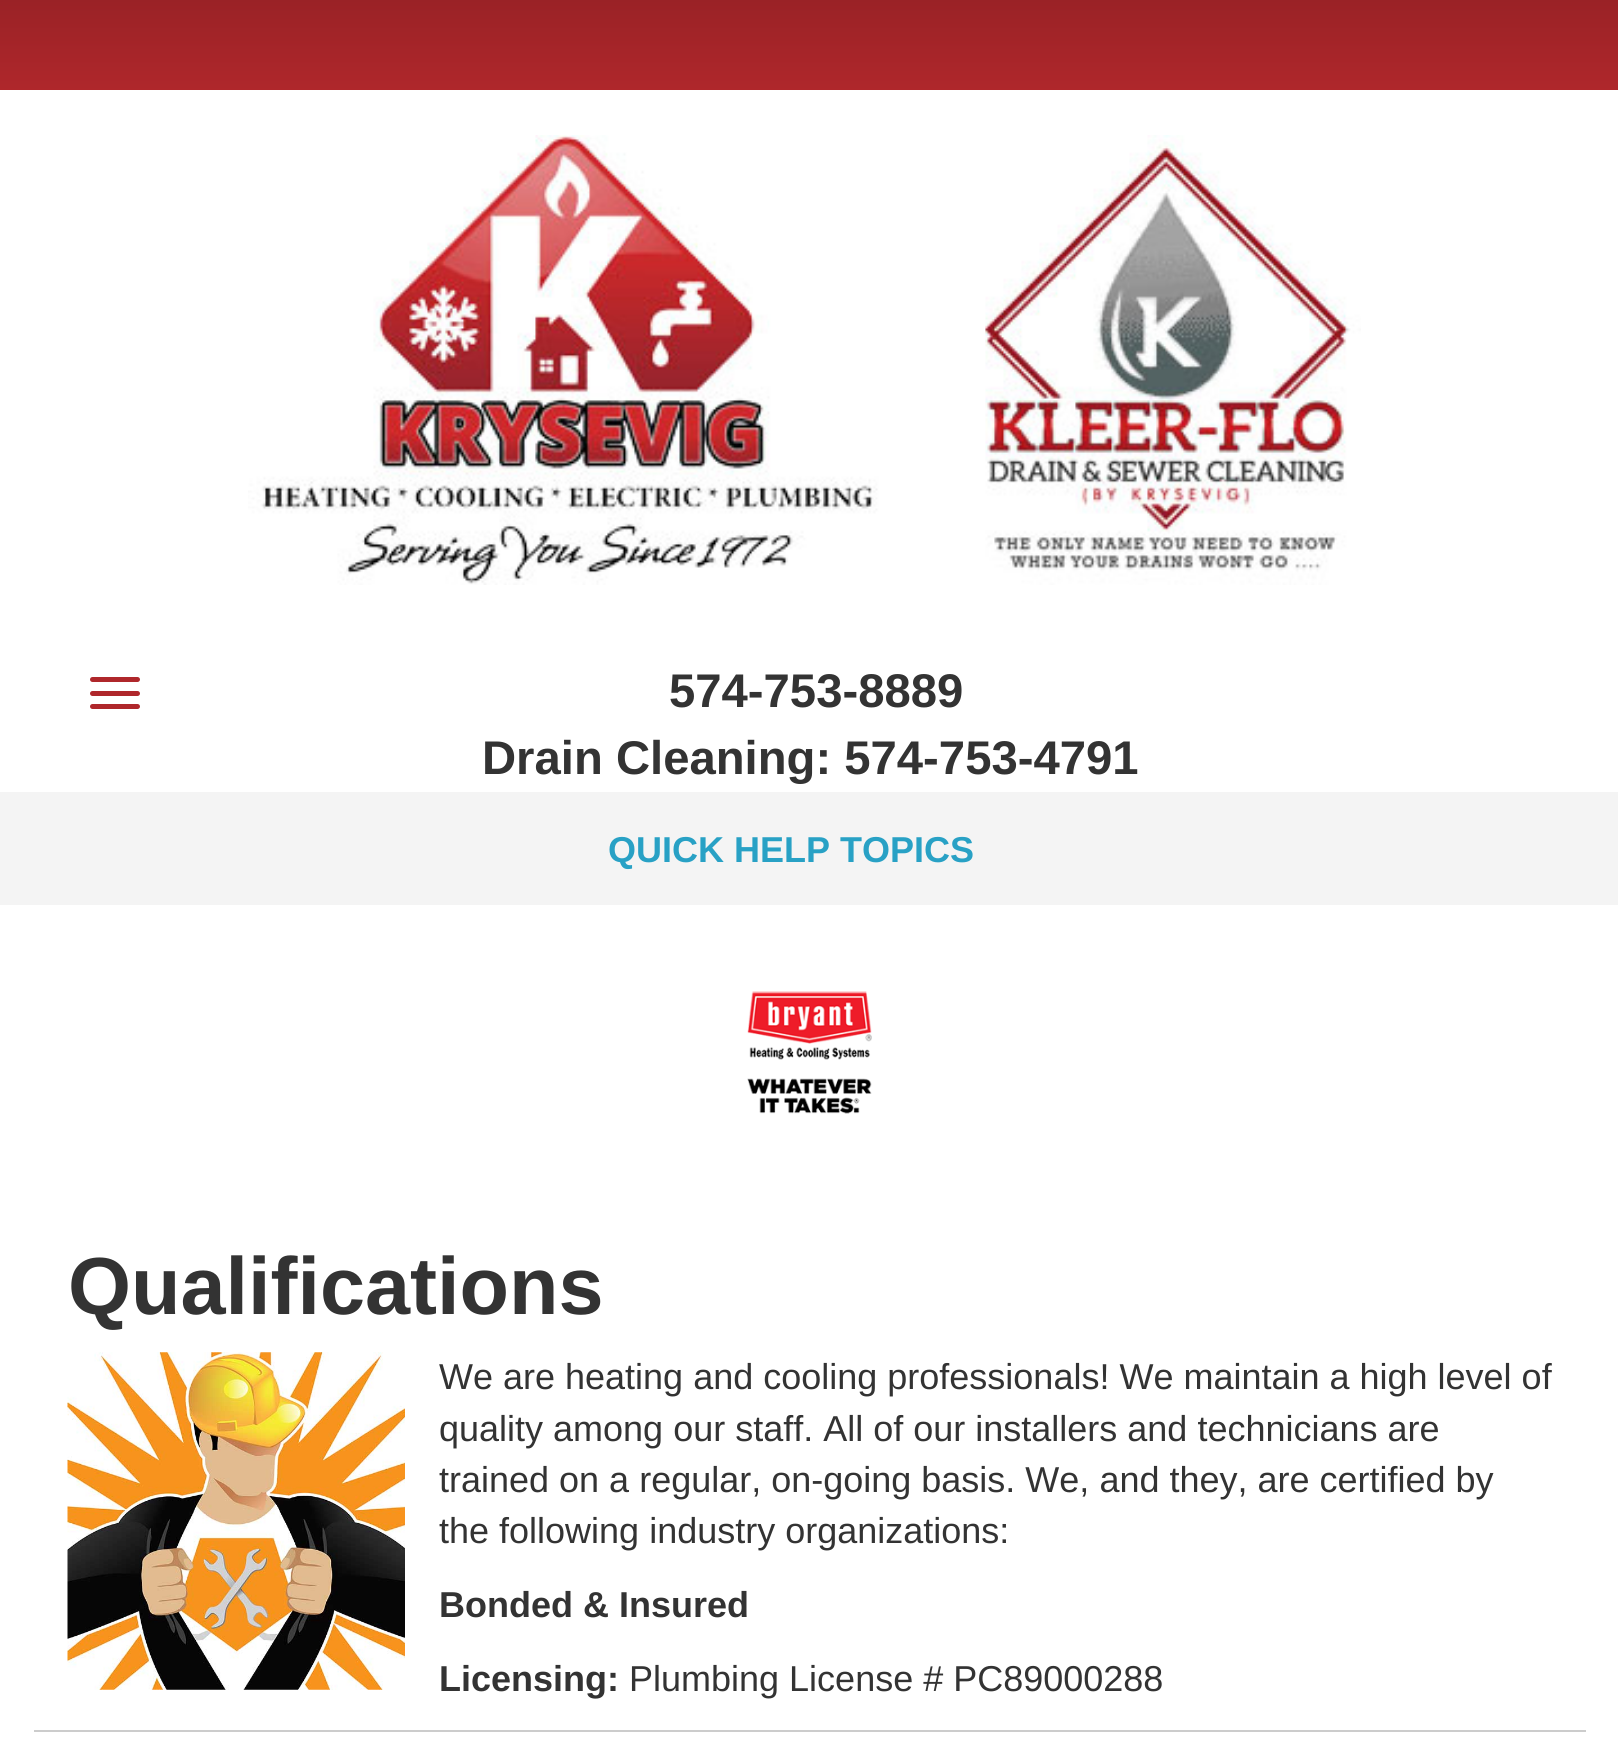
#include <cairo.h>
#include <math.h>
#include <stddef.h>

static cairo_t *ctx;

static void use_color(int r, int g, int b) {
    cairo_set_source_rgb(ctx, r / 255.0, g / 255.0, b / 255.0);
}

static void round_rect(double x, double y, double w, double h, double r) {
    cairo_new_sub_path(ctx);
    cairo_arc(ctx, x + w - r, y + h - r, r, 0, M_PI / 2);
    cairo_arc(ctx, x + r, y + h - r, r, M_PI / 2, M_PI);
    cairo_arc(ctx, x + r, y + r, r, M_PI, 1.5 * M_PI);
    cairo_arc(ctx, x + w - r, y + r, r, 1.5 * M_PI, 2 * M_PI);
    cairo_close_path(ctx);
}

static void picture(const char *path, double x, double y, double w, double h) {
    cairo_surface_t *image = cairo_image_surface_create_from_png(path);
    cairo_save(ctx);
    cairo_set_source_surface(ctx, image, x, y);
    cairo_rectangle(ctx, x, y, w, h);
    cairo_fill(ctx);
    cairo_restore(ctx);
    cairo_surface_destroy(image);
}

int main(void) {
    cairo_surface_t *surface = cairo_image_surface_create(CAIRO_FORMAT_RGB24, 1618, 1748);
    ctx = cairo_create(surface);
    cairo_font_options_t *options = cairo_font_options_create();
    cairo_font_options_set_hint_metrics(options, CAIRO_HINT_METRICS_OFF);
    cairo_font_options_set_hint_style(options, CAIRO_HINT_STYLE_NONE);
    cairo_set_font_options(ctx, options);
    cairo_set_miter_limit(ctx, 4);
    cairo_pattern_t *gradient;
    use_color(255, 255, 255);
    cairo_paint(ctx);
    gradient = cairo_pattern_create_linear(810, 0, 810, 90);
    cairo_pattern_add_color_stop_rgba(gradient, 0, 0.604, 0.133, 0.149, 1);
    cairo_pattern_add_color_stop_rgba(gradient, 1, 0.686, 0.153, 0.169, 1);
    cairo_set_source(ctx, gradient);
    cairo_pattern_destroy(gradient);
    cairo_rectangle(ctx, 0, 0, 1618, 90);
    cairo_fill(ctx);
    picture("img1.png", 248, 135, 1113, 450);
    use_color(175, 39, 43);
    round_rect(90, 677, 50, 5, 2.5);
    cairo_fill(ctx);
    round_rect(90, 691, 50, 5, 2.5);
    cairo_fill(ctx);
    round_rect(90, 704, 50, 5, 2.5);
    cairo_fill(ctx);
    cairo_select_font_face(ctx, "Arimo", CAIRO_FONT_SLANT_NORMAL, CAIRO_FONT_WEIGHT_BOLD);
    cairo_set_font_size(ctx, 47.25);
    use_color(51, 51, 51);
    cairo_move_to(ctx, 669, 707);
    cairo_show_text(ctx, "574-753-8889");
    cairo_move_to(ctx, 482, 774);
    cairo_show_text(ctx, "Drain Cleaning: 574-753-4791");
    use_color(244, 244, 244);
    cairo_rectangle(ctx, 0, 792, 1618, 113);
    cairo_fill(ctx);
    cairo_set_font_size(ctx, 36);
    use_color(40, 161, 197);
    cairo_move_to(ctx, 608, 862);
    cairo_show_text(ctx, "QUICK HELP TOPICS");
    picture("img2.png", 747, 991, 125, 123);
    cairo_set_font_size(ctx, 81);
    use_color(51, 51, 51);
    cairo_move_to(ctx, 68, 1314);
    cairo_show_text(ctx, "Qualifications");
    picture("img3.png", 67, 1352, 338, 338);
    cairo_select_font_face(ctx, "Arimo", CAIRO_FONT_SLANT_NORMAL, CAIRO_FONT_WEIGHT_NORMAL);
    cairo_set_font_size(ctx, 36);
    cairo_move_to(ctx, 439, 1389);
    cairo_show_text(ctx, "We are heating and cooling professionals! We maintain a high level of");
    cairo_move_to(ctx, 439, 1441);
    cairo_show_text(ctx, "quality among our staff. All of our installers and technicians are");
    cairo_move_to(ctx, 439, 1492);
    cairo_show_text(ctx, "trained on a regular, on-going basis. We, and they, are certified by");
    cairo_move_to(ctx, 439, 1543);
    cairo_show_text(ctx, "the following industry organizations:");
    cairo_select_font_face(ctx, "Arimo", CAIRO_FONT_SLANT_NORMAL, CAIRO_FONT_WEIGHT_BOLD);
    cairo_move_to(ctx, 439, 1617);
    cairo_show_text(ctx, "Bonded & Insured");
    cairo_move_to(ctx, 439, 1691);
    cairo_show_text(ctx, "Licensing:");
    cairo_select_font_face(ctx, "Arimo", CAIRO_FONT_SLANT_NORMAL, CAIRO_FONT_WEIGHT_NORMAL);
    cairo_move_to(ctx, 629, 1691);
    cairo_show_text(ctx, "Plumbing License # PC89000288");
    use_color(204, 204, 204);
    cairo_rectangle(ctx, 34, 1730, 1552, 2);
    cairo_fill(ctx);
    cairo_surface_write_to_png(surface, "result.png");
    cairo_font_options_destroy(options);
    cairo_destroy(ctx);
    cairo_surface_destroy(surface);
    return 0;
}
